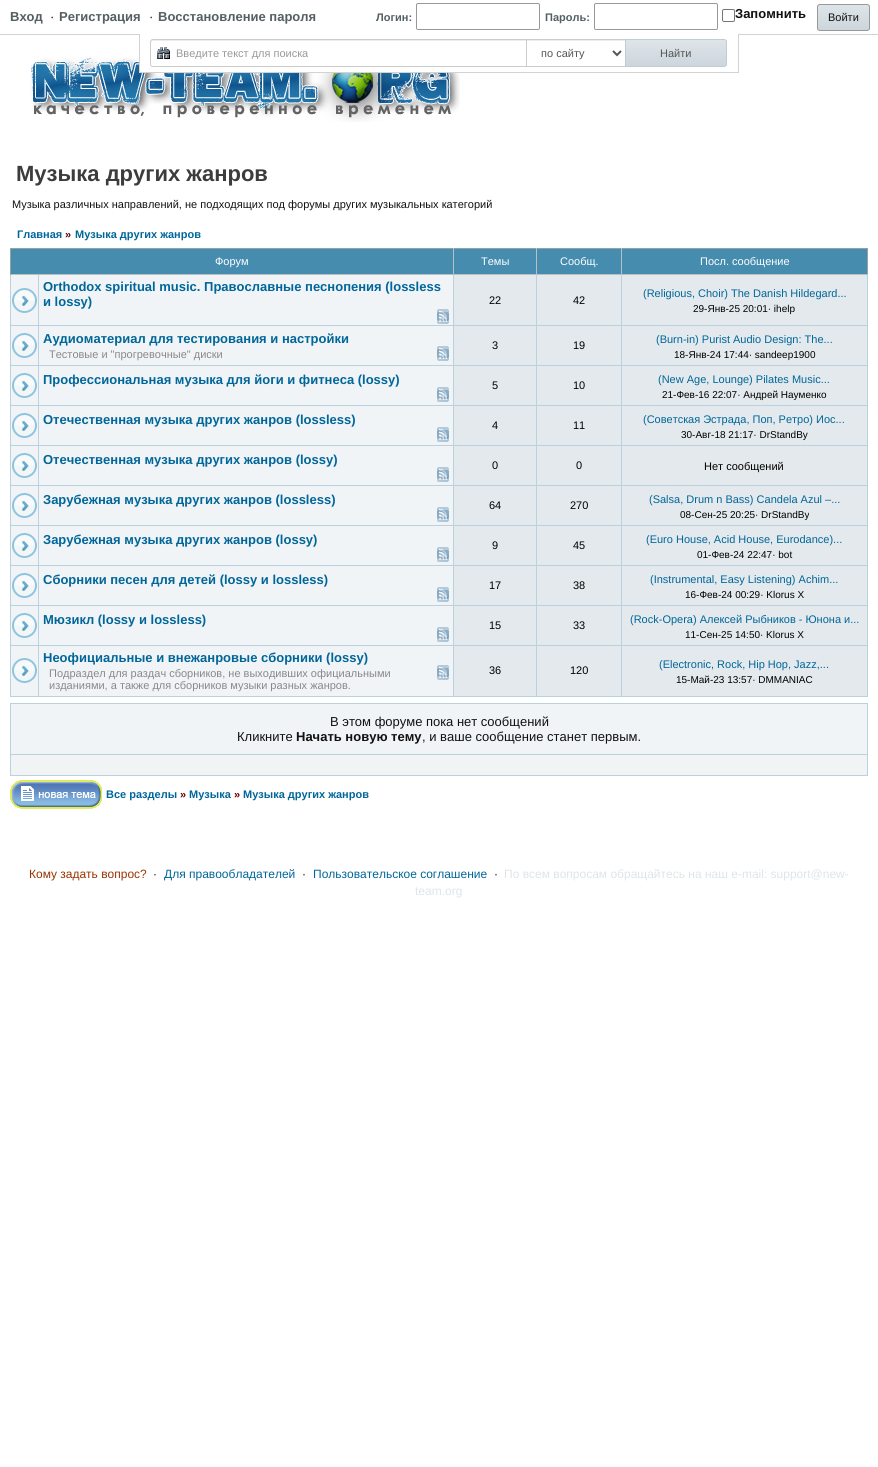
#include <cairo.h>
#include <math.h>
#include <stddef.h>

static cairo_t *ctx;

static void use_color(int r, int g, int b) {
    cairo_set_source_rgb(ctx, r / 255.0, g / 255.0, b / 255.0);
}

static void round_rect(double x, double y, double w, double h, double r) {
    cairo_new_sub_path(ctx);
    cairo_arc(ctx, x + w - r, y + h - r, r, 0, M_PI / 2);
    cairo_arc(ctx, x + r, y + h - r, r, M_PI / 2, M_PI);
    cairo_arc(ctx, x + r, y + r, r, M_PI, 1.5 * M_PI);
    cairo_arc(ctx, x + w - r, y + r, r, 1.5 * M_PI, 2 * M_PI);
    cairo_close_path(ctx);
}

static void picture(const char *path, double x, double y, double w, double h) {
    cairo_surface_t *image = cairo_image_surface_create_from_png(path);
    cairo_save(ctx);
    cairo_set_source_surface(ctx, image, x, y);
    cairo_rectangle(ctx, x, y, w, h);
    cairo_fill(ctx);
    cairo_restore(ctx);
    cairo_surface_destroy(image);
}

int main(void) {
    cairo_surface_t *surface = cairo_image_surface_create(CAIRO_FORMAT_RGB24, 878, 1467);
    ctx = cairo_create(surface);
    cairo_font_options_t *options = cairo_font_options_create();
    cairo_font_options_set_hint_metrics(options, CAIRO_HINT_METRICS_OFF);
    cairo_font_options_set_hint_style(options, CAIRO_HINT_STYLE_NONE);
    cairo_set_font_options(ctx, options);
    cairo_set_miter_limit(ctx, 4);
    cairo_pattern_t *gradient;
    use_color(255, 255, 255);
    cairo_paint(ctx);
    cairo_select_font_face(ctx, "Liberation Sans", CAIRO_FONT_SLANT_NORMAL, CAIRO_FONT_WEIGHT_BOLD);
    cairo_set_font_size(ctx, 13);
    use_color(83, 95, 98);
    cairo_move_to(ctx, 10, 21);
    cairo_show_text(ctx, "Вход");
    cairo_select_font_face(ctx, "Liberation Sans", CAIRO_FONT_SLANT_NORMAL, CAIRO_FONT_WEIGHT_NORMAL);
    use_color(17, 17, 17);
    cairo_move_to(ctx, 50, 21);
    cairo_show_text(ctx, "·");
    cairo_select_font_face(ctx, "Liberation Sans", CAIRO_FONT_SLANT_NORMAL, CAIRO_FONT_WEIGHT_BOLD);
    use_color(83, 95, 98);
    cairo_move_to(ctx, 59, 21);
    cairo_show_text(ctx, "Регистрация");
    cairo_select_font_face(ctx, "Liberation Sans", CAIRO_FONT_SLANT_NORMAL, CAIRO_FONT_WEIGHT_NORMAL);
    use_color(17, 17, 17);
    cairo_move_to(ctx, 149, 21);
    cairo_show_text(ctx, "·");
    cairo_select_font_face(ctx, "Liberation Sans", CAIRO_FONT_SLANT_NORMAL, CAIRO_FONT_WEIGHT_BOLD);
    use_color(83, 95, 98);
    cairo_move_to(ctx, 158, 21);
    cairo_show_text(ctx, "Восстановление пароля");
    cairo_set_font_size(ctx, 11);
    cairo_move_to(ctx, 376, 21);
    cairo_show_text(ctx, "Логин:");
    round_rect(416.5, 3.5, 123, 26, 1.5);
    use_color(152, 152, 152);
    cairo_set_line_width(ctx, 1);
    cairo_stroke(ctx);
    use_color(83, 95, 98);
    cairo_move_to(ctx, 545, 21);
    cairo_show_text(ctx, "Пароль:");
    round_rect(594.5, 3.5, 123, 26, 1.5);
    use_color(152, 152, 152);
    cairo_stroke(ctx);
    round_rect(722.5, 9.5, 12, 12, 1.5);
    use_color(118, 118, 118);
    cairo_stroke(ctx);
    cairo_set_font_size(ctx, 13);
    use_color(17, 17, 17);
    cairo_move_to(ctx, 735, 18);
    cairo_show_text(ctx, "Запомнить");
    cairo_save(ctx);
    round_rect(817, 4, 53, 27, 3);
    cairo_clip(ctx);
    gradient = cairo_pattern_create_linear(844, 5, 844, 30);
    cairo_pattern_add_color_stop_rgba(gradient, 0, 0.871, 0.898, 0.914, 1);
    cairo_pattern_add_color_stop_rgba(gradient, 1, 0.8, 0.839, 0.863, 1);
    cairo_set_source(ctx, gradient);
    cairo_pattern_destroy(gradient);
    cairo_rectangle(ctx, 817, 5, 53, 25);
    cairo_fill(ctx);
    cairo_restore(ctx);
    round_rect(817.5, 4.5, 52, 26, 2.5);
    use_color(152, 152, 152);
    cairo_stroke(ctx);
    cairo_select_font_face(ctx, "Liberation Sans", CAIRO_FONT_SLANT_NORMAL, CAIRO_FONT_WEIGHT_NORMAL);
    cairo_set_font_size(ctx, 11);
    use_color(17, 17, 17);
    cairo_move_to(ctx, 828, 21);
    cairo_show_text(ctx, "Войти");
    use_color(211, 211, 211);
    cairo_rectangle(ctx, 0, 34, 878, 1);
    cairo_fill(ctx);
    picture("img2.png", 30, 56, 430, 66);
    use_color(255, 255, 255);
    cairo_rectangle(ctx, 140, 34, 598, 38);
    cairo_fill(ctx);
    use_color(211, 211, 211);
    cairo_rectangle(ctx, 738, 34, 1, 39);
    cairo_fill(ctx);
    cairo_rectangle(ctx, 139, 72, 600, 1);
    cairo_fill(ctx);
    cairo_rectangle(ctx, 139, 34, 1, 39);
    cairo_fill(ctx);
    picture("img1.png", 157, 47, 13, 12);
    use_color(236, 236, 236);
    cairo_new_path(ctx);
    cairo_move_to(ctx, 153, 41);
    cairo_line_to(ctx, 526, 41);
    cairo_line_to(ctx, 526, 40);
    cairo_line_to(ctx, 153, 40);
    cairo_curve_to(ctx, 151, 40, 151, 42, 151, 43);
    cairo_curve_to(ctx, 151, 42, 152, 41, 153, 41);
    cairo_close_path(ctx);
    cairo_fill(ctx);
    cairo_new_path(ctx);
    cairo_move_to(ctx, 153, 39.5);
    cairo_line_to(ctx, 526.5, 39.5);
    cairo_line_to(ctx, 526.5, 66.5);
    cairo_line_to(ctx, 153, 66.5);
    cairo_curve_to(ctx, 151.5, 66.5, 150.5, 65.5, 150.5, 64);
    cairo_line_to(ctx, 150.5, 42);
    cairo_curve_to(ctx, 150.5, 40.5, 151.5, 39.5, 153, 39.5);
    cairo_close_path(ctx);
    use_color(204, 204, 204);
    cairo_stroke(ctx);
    cairo_save(ctx);
    cairo_rectangle(ctx, 176, 47, 325, 12);
    cairo_clip(ctx);
    use_color(153, 153, 153);
    cairo_move_to(ctx, 176, 57);
    cairo_show_text(ctx, "Введите текст для поиска");
    cairo_restore(ctx);
    use_color(236, 236, 236);
    cairo_rectangle(ctx, 527, 40, 98, 1);
    cairo_fill(ctx);
    cairo_rectangle(ctx, 526.5, 39.5, 99, 27);
    use_color(204, 204, 204);
    cairo_stroke(ctx);
    cairo_new_path(ctx);
    cairo_move_to(ctx, 613, 51);
    cairo_line_to(ctx, 617, 55);
    cairo_line_to(ctx, 621, 51);
    use_color(85, 85, 85);
    cairo_set_line_width(ctx, 2);
    cairo_stroke(ctx);
    cairo_move_to(ctx, 541, 57);
    cairo_show_text(ctx, "по сайту");
    cairo_save(ctx);
    cairo_new_path(ctx);
    cairo_move_to(ctx, 625, 39);
    cairo_line_to(ctx, 724, 39);
    cairo_curve_to(ctx, 725.5, 39, 727, 40.5, 727, 42);
    cairo_line_to(ctx, 727, 64);
    cairo_curve_to(ctx, 727, 65.5, 725.5, 67, 724, 67);
    cairo_line_to(ctx, 625, 67);
    cairo_close_path(ctx);
    cairo_clip(ctx);
    gradient = cairo_pattern_create_linear(676, 40, 676, 66);
    cairo_pattern_add_color_stop_rgba(gradient, 0, 0.871, 0.898, 0.914, 1);
    cairo_pattern_add_color_stop_rgba(gradient, 1, 0.8, 0.839, 0.863, 1);
    cairo_set_source(ctx, gradient);
    cairo_pattern_destroy(gradient);
    cairo_rectangle(ctx, 626, 40, 101, 26);
    cairo_fill(ctx);
    cairo_restore(ctx);
    cairo_new_path(ctx);
    cairo_move_to(ctx, 625.5, 39.5);
    cairo_line_to(ctx, 724, 39.5);
    cairo_curve_to(ctx, 725.5, 39.5, 726.5, 40.5, 726.5, 42);
    cairo_line_to(ctx, 726.5, 64);
    cairo_curve_to(ctx, 726.5, 65.5, 725.5, 66.5, 724, 66.5);
    cairo_line_to(ctx, 625.5, 66.5);
    cairo_close_path(ctx);
    use_color(192, 205, 212);
    cairo_set_line_width(ctx, 1);
    cairo_stroke(ctx);
    use_color(85, 85, 85);
    cairo_move_to(ctx, 660, 57);
    cairo_show_text(ctx, "Найти");
    cairo_select_font_face(ctx, "Liberation Sans", CAIRO_FONT_SLANT_NORMAL, CAIRO_FONT_WEIGHT_BOLD);
    cairo_set_font_size(ctx, 22);
    use_color(60, 60, 60);
    cairo_move_to(ctx, 16, 181);
    cairo_show_text(ctx, "Музыка других жанров");
    cairo_select_font_face(ctx, "Liberation Sans", CAIRO_FONT_SLANT_NORMAL, CAIRO_FONT_WEIGHT_NORMAL);
    cairo_set_font_size(ctx, 11);
    use_color(17, 17, 17);
    cairo_move_to(ctx, 12, 208);
    cairo_show_text(ctx, "Музыка различных направлений, не подходящих под форумы других музыкальных категорий");
    cairo_select_font_face(ctx, "Liberation Sans", CAIRO_FONT_SLANT_NORMAL, CAIRO_FONT_WEIGHT_BOLD);
    use_color(0, 102, 153);
    cairo_move_to(ctx, 17, 238);
    cairo_show_text(ctx, "Главная");
    use_color(102, 0, 0);
    cairo_move_to(ctx, 65, 238);
    cairo_show_text(ctx, "»");
    use_color(0, 102, 153);
    cairo_move_to(ctx, 75, 238);
    cairo_show_text(ctx, "Музыка других жанров");
    use_color(69, 140, 175);
    cairo_rectangle(ctx, 11, 249, 442, 25);
    cairo_fill(ctx);
    use_color(146, 163, 164);
    cairo_rectangle(ctx, 10, 248, 858, 1);
    cairo_fill(ctx);
    use_color(227, 233, 236);
    cairo_rectangle(ctx, 622, 275, 245, 421);
    cairo_fill(ctx);
    use_color(185, 210, 222);
    cairo_rectangle(ctx, 621, 325, 247, 1);
    cairo_fill(ctx);
    cairo_rectangle(ctx, 621, 365, 247, 1);
    cairo_fill(ctx);
    cairo_rectangle(ctx, 621, 405, 247, 1);
    cairo_fill(ctx);
    cairo_rectangle(ctx, 621, 445, 247, 1);
    cairo_fill(ctx);
    cairo_rectangle(ctx, 621, 485, 247, 1);
    cairo_fill(ctx);
    cairo_rectangle(ctx, 621, 525, 247, 1);
    cairo_fill(ctx);
    cairo_rectangle(ctx, 621, 565, 247, 1);
    cairo_fill(ctx);
    cairo_rectangle(ctx, 621, 605, 247, 1);
    cairo_fill(ctx);
    cairo_rectangle(ctx, 621, 645, 247, 1);
    cairo_fill(ctx);
    cairo_rectangle(ctx, 867, 645, 1, 52);
    cairo_fill(ctx);
    cairo_rectangle(ctx, 867, 605, 1, 41);
    cairo_fill(ctx);
    cairo_rectangle(ctx, 867, 565, 1, 41);
    cairo_fill(ctx);
    cairo_rectangle(ctx, 867, 525, 1, 41);
    cairo_fill(ctx);
    cairo_rectangle(ctx, 867, 485, 1, 41);
    cairo_fill(ctx);
    cairo_rectangle(ctx, 867, 445, 1, 41);
    cairo_fill(ctx);
    cairo_rectangle(ctx, 867, 405, 1, 41);
    cairo_fill(ctx);
    cairo_rectangle(ctx, 867, 365, 1, 41);
    cairo_fill(ctx);
    cairo_rectangle(ctx, 867, 274, 1, 92);
    cairo_fill(ctx);
    use_color(146, 163, 164);
    cairo_rectangle(ctx, 867, 248, 1, 27);
    cairo_fill(ctx);
    use_color(185, 210, 222);
    cairo_rectangle(ctx, 621, 696, 247, 1);
    cairo_fill(ctx);
    cairo_rectangle(ctx, 621, 645, 1, 52);
    cairo_fill(ctx);
    use_color(227, 233, 236);
    cairo_rectangle(ctx, 537, 275, 84, 421);
    cairo_fill(ctx);
    use_color(185, 210, 222);
    cairo_rectangle(ctx, 536, 645, 86, 1);
    cairo_fill(ctx);
    cairo_rectangle(ctx, 621, 605, 1, 41);
    cairo_fill(ctx);
    cairo_rectangle(ctx, 536, 605, 86, 1);
    cairo_fill(ctx);
    cairo_rectangle(ctx, 621, 565, 1, 41);
    cairo_fill(ctx);
    cairo_rectangle(ctx, 536, 565, 86, 1);
    cairo_fill(ctx);
    cairo_rectangle(ctx, 621, 525, 1, 41);
    cairo_fill(ctx);
    cairo_rectangle(ctx, 536, 525, 86, 1);
    cairo_fill(ctx);
    cairo_rectangle(ctx, 621, 485, 1, 41);
    cairo_fill(ctx);
    cairo_rectangle(ctx, 536, 485, 86, 1);
    cairo_fill(ctx);
    cairo_rectangle(ctx, 621, 445, 1, 41);
    cairo_fill(ctx);
    cairo_rectangle(ctx, 536, 445, 86, 1);
    cairo_fill(ctx);
    cairo_rectangle(ctx, 621, 405, 1, 41);
    cairo_fill(ctx);
    cairo_rectangle(ctx, 536, 405, 86, 1);
    cairo_fill(ctx);
    cairo_rectangle(ctx, 621, 365, 1, 41);
    cairo_fill(ctx);
    cairo_rectangle(ctx, 536, 365, 86, 1);
    cairo_fill(ctx);
    cairo_rectangle(ctx, 621, 325, 1, 41);
    cairo_fill(ctx);
    cairo_rectangle(ctx, 536, 325, 86, 1);
    cairo_fill(ctx);
    cairo_rectangle(ctx, 621, 274, 1, 52);
    cairo_fill(ctx);
    use_color(183, 192, 197);
    cairo_rectangle(ctx, 621, 274, 247, 1);
    cairo_fill(ctx);
    cairo_rectangle(ctx, 621, 248, 1, 27);
    cairo_fill(ctx);
    use_color(185, 210, 222);
    cairo_rectangle(ctx, 536, 696, 86, 1);
    cairo_fill(ctx);
    cairo_rectangle(ctx, 536, 645, 1, 52);
    cairo_fill(ctx);
    use_color(227, 233, 236);
    cairo_rectangle(ctx, 454, 275, 82, 421);
    cairo_fill(ctx);
    use_color(185, 210, 222);
    cairo_rectangle(ctx, 453, 645, 84, 1);
    cairo_fill(ctx);
    cairo_rectangle(ctx, 536, 605, 1, 41);
    cairo_fill(ctx);
    cairo_rectangle(ctx, 453, 605, 84, 1);
    cairo_fill(ctx);
    cairo_rectangle(ctx, 536, 565, 1, 41);
    cairo_fill(ctx);
    cairo_rectangle(ctx, 453, 565, 84, 1);
    cairo_fill(ctx);
    cairo_rectangle(ctx, 536, 525, 1, 41);
    cairo_fill(ctx);
    cairo_rectangle(ctx, 453, 525, 84, 1);
    cairo_fill(ctx);
    cairo_rectangle(ctx, 536, 485, 1, 41);
    cairo_fill(ctx);
    cairo_rectangle(ctx, 453, 485, 84, 1);
    cairo_fill(ctx);
    cairo_rectangle(ctx, 536, 445, 1, 41);
    cairo_fill(ctx);
    cairo_rectangle(ctx, 453, 445, 84, 1);
    cairo_fill(ctx);
    cairo_rectangle(ctx, 536, 405, 1, 41);
    cairo_fill(ctx);
    cairo_rectangle(ctx, 453, 405, 84, 1);
    cairo_fill(ctx);
    cairo_rectangle(ctx, 536, 365, 1, 41);
    cairo_fill(ctx);
    cairo_rectangle(ctx, 453, 365, 84, 1);
    cairo_fill(ctx);
    cairo_rectangle(ctx, 536, 325, 1, 41);
    cairo_fill(ctx);
    cairo_rectangle(ctx, 453, 325, 84, 1);
    cairo_fill(ctx);
    cairo_rectangle(ctx, 536, 274, 1, 52);
    cairo_fill(ctx);
    use_color(183, 192, 197);
    cairo_rectangle(ctx, 536, 274, 86, 1);
    cairo_fill(ctx);
    cairo_rectangle(ctx, 536, 248, 1, 27);
    cairo_fill(ctx);
    use_color(185, 210, 222);
    cairo_rectangle(ctx, 453, 696, 84, 1);
    cairo_fill(ctx);
    cairo_rectangle(ctx, 453, 645, 1, 52);
    cairo_fill(ctx);
    use_color(241, 244, 247);
    cairo_rectangle(ctx, 39, 275, 414, 421);
    cairo_fill(ctx);
    use_color(185, 210, 222);
    cairo_rectangle(ctx, 38, 645, 416, 1);
    cairo_fill(ctx);
    cairo_rectangle(ctx, 453, 605, 1, 41);
    cairo_fill(ctx);
    cairo_rectangle(ctx, 38, 605, 416, 1);
    cairo_fill(ctx);
    cairo_rectangle(ctx, 453, 565, 1, 41);
    cairo_fill(ctx);
    cairo_rectangle(ctx, 38, 565, 416, 1);
    cairo_fill(ctx);
    cairo_rectangle(ctx, 453, 525, 1, 41);
    cairo_fill(ctx);
    cairo_rectangle(ctx, 38, 525, 416, 1);
    cairo_fill(ctx);
    cairo_rectangle(ctx, 453, 485, 1, 41);
    cairo_fill(ctx);
    cairo_rectangle(ctx, 38, 485, 416, 1);
    cairo_fill(ctx);
    cairo_rectangle(ctx, 453, 445, 1, 41);
    cairo_fill(ctx);
    cairo_rectangle(ctx, 38, 445, 416, 1);
    cairo_fill(ctx);
    cairo_rectangle(ctx, 453, 405, 1, 41);
    cairo_fill(ctx);
    cairo_rectangle(ctx, 38, 405, 416, 1);
    cairo_fill(ctx);
    cairo_rectangle(ctx, 453, 365, 1, 41);
    cairo_fill(ctx);
    cairo_rectangle(ctx, 38, 365, 416, 1);
    cairo_fill(ctx);
    cairo_rectangle(ctx, 453, 325, 1, 41);
    cairo_fill(ctx);
    cairo_rectangle(ctx, 38, 325, 416, 1);
    cairo_fill(ctx);
    cairo_rectangle(ctx, 453, 274, 1, 52);
    cairo_fill(ctx);
    use_color(183, 192, 197);
    cairo_rectangle(ctx, 453, 274, 84, 1);
    cairo_fill(ctx);
    cairo_rectangle(ctx, 453, 248, 1, 27);
    cairo_fill(ctx);
    use_color(185, 210, 222);
    cairo_rectangle(ctx, 38, 696, 416, 1);
    cairo_fill(ctx);
    cairo_rectangle(ctx, 38, 645, 1, 52);
    cairo_fill(ctx);
    use_color(241, 244, 247);
    cairo_rectangle(ctx, 11, 275, 27, 421);
    cairo_fill(ctx);
    use_color(185, 210, 222);
    cairo_rectangle(ctx, 10, 645, 29, 1);
    cairo_fill(ctx);
    cairo_rectangle(ctx, 38, 605, 1, 41);
    cairo_fill(ctx);
    cairo_rectangle(ctx, 10, 605, 29, 1);
    cairo_fill(ctx);
    cairo_rectangle(ctx, 38, 565, 1, 41);
    cairo_fill(ctx);
    cairo_rectangle(ctx, 10, 565, 29, 1);
    cairo_fill(ctx);
    cairo_rectangle(ctx, 38, 525, 1, 41);
    cairo_fill(ctx);
    cairo_rectangle(ctx, 10, 525, 29, 1);
    cairo_fill(ctx);
    cairo_rectangle(ctx, 38, 485, 1, 41);
    cairo_fill(ctx);
    cairo_rectangle(ctx, 10, 485, 29, 1);
    cairo_fill(ctx);
    cairo_rectangle(ctx, 38, 445, 1, 41);
    cairo_fill(ctx);
    cairo_rectangle(ctx, 10, 445, 29, 1);
    cairo_fill(ctx);
    cairo_rectangle(ctx, 38, 405, 1, 41);
    cairo_fill(ctx);
    cairo_rectangle(ctx, 10, 405, 29, 1);
    cairo_fill(ctx);
    cairo_rectangle(ctx, 38, 365, 1, 41);
    cairo_fill(ctx);
    cairo_rectangle(ctx, 10, 365, 29, 1);
    cairo_fill(ctx);
    cairo_rectangle(ctx, 38, 325, 1, 41);
    cairo_fill(ctx);
    cairo_rectangle(ctx, 10, 325, 29, 1);
    cairo_fill(ctx);
    cairo_rectangle(ctx, 38, 274, 1, 52);
    cairo_fill(ctx);
    cairo_rectangle(ctx, 10, 696, 29, 1);
    cairo_fill(ctx);
    cairo_rectangle(ctx, 10, 645, 1, 52);
    cairo_fill(ctx);
    cairo_rectangle(ctx, 10, 605, 1, 41);
    cairo_fill(ctx);
    cairo_rectangle(ctx, 10, 565, 1, 41);
    cairo_fill(ctx);
    cairo_rectangle(ctx, 10, 525, 1, 41);
    cairo_fill(ctx);
    cairo_rectangle(ctx, 10, 485, 1, 41);
    cairo_fill(ctx);
    cairo_rectangle(ctx, 10, 445, 1, 41);
    cairo_fill(ctx);
    cairo_rectangle(ctx, 10, 405, 1, 41);
    cairo_fill(ctx);
    cairo_rectangle(ctx, 10, 365, 1, 41);
    cairo_fill(ctx);
    cairo_rectangle(ctx, 10, 274, 1, 92);
    cairo_fill(ctx);
    use_color(183, 192, 197);
    cairo_rectangle(ctx, 10, 274, 444, 1);
    cairo_fill(ctx);
    use_color(146, 163, 164);
    cairo_rectangle(ctx, 10, 248, 1, 27);
    cairo_fill(ctx);
    cairo_select_font_face(ctx, "Liberation Sans", CAIRO_FONT_SLANT_NORMAL, CAIRO_FONT_WEIGHT_NORMAL);
    use_color(255, 255, 255);
    cairo_move_to(ctx, 215, 265);
    cairo_show_text(ctx, "Форум");
    use_color(69, 140, 175);
    cairo_rectangle(ctx, 454, 249, 82, 25);
    cairo_fill(ctx);
    use_color(255, 255, 255);
    cairo_move_to(ctx, 481, 265);
    cairo_show_text(ctx, "Темы");
    use_color(69, 140, 175);
    cairo_rectangle(ctx, 537, 249, 84, 25);
    cairo_fill(ctx);
    use_color(255, 255, 255);
    cairo_move_to(ctx, 560, 265);
    cairo_show_text(ctx, "Сообщ.");
    use_color(69, 140, 175);
    cairo_rectangle(ctx, 622, 249, 245, 25);
    cairo_fill(ctx);
    use_color(255, 255, 255);
    cairo_move_to(ctx, 700, 265);
    cairo_show_text(ctx, "Посл. сообщение");
    picture("img3.png", 12, 288, 25, 25);
    cairo_select_font_face(ctx, "Liberation Sans", CAIRO_FONT_SLANT_NORMAL, CAIRO_FONT_WEIGHT_BOLD);
    cairo_set_font_size(ctx, 13);
    use_color(0, 102, 153);
    cairo_move_to(ctx, 43, 291);
    cairo_show_text(ctx, "Orthodox spiritual music. Православные песнопения (lossless");
    cairo_move_to(ctx, 43, 306);
    cairo_show_text(ctx, "и lossy)");
    picture("img4.png", 437, 309, 12, 12);
    picture("img5.png", 437, 312, 12, 12);
    cairo_select_font_face(ctx, "Liberation Sans", CAIRO_FONT_SLANT_NORMAL, CAIRO_FONT_WEIGHT_NORMAL);
    cairo_set_font_size(ctx, 11);
    use_color(0, 0, 0);
    cairo_move_to(ctx, 489, 304);
    cairo_show_text(ctx, "22");
    cairo_move_to(ctx, 573, 304);
    cairo_show_text(ctx, "42");
    use_color(0, 102, 153);
    cairo_move_to(ctx, 643, 297);
    cairo_show_text(ctx, "(Religious, Choir) The Danish Hildegard...");
    cairo_set_font_size(ctx, 10);
    use_color(0, 0, 0);
    cairo_move_to(ctx, 693, 312);
    cairo_show_text(ctx, "29-Янв-25 20:01· ihelp");
    picture("img3.png", 12, 333, 25, 25);
    cairo_select_font_face(ctx, "Liberation Sans", CAIRO_FONT_SLANT_NORMAL, CAIRO_FONT_WEIGHT_BOLD);
    cairo_set_font_size(ctx, 13);
    use_color(0, 102, 153);
    cairo_move_to(ctx, 43, 343);
    cairo_show_text(ctx, "Аудиоматериал для тестирования и настройки");
    cairo_select_font_face(ctx, "Liberation Sans", CAIRO_FONT_SLANT_NORMAL, CAIRO_FONT_WEIGHT_NORMAL);
    cairo_set_font_size(ctx, 11);
    use_color(136, 136, 136);
    cairo_move_to(ctx, 49, 358);
    cairo_show_text(ctx, "Тестовые и \"прогревочные\" диски");
    picture("img4.png", 437, 346, 12, 12);
    picture("img5.png", 437, 349, 12, 12);
    use_color(0, 0, 0);
    cairo_move_to(ctx, 492, 349);
    cairo_show_text(ctx, "3");
    cairo_move_to(ctx, 573, 349);
    cairo_show_text(ctx, "19");
    use_color(0, 102, 153);
    cairo_move_to(ctx, 656, 343);
    cairo_show_text(ctx, "(Burn-in) Purist Audio Design: The...");
    cairo_set_font_size(ctx, 10);
    use_color(0, 0, 0);
    cairo_move_to(ctx, 674, 358);
    cairo_show_text(ctx, "18-Янв-24 17:44· sandeep1900");
    picture("img3.png", 12, 373, 25, 25);
    cairo_select_font_face(ctx, "Liberation Sans", CAIRO_FONT_SLANT_NORMAL, CAIRO_FONT_WEIGHT_BOLD);
    cairo_set_font_size(ctx, 13);
    use_color(0, 102, 153);
    cairo_move_to(ctx, 43, 384);
    cairo_show_text(ctx, "Профессиональная музыка для йоги и фитнеса (lossy)");
    picture("img4.png", 437, 387, 12, 12);
    picture("img5.png", 437, 390, 12, 12);
    cairo_select_font_face(ctx, "Liberation Sans", CAIRO_FONT_SLANT_NORMAL, CAIRO_FONT_WEIGHT_NORMAL);
    cairo_set_font_size(ctx, 11);
    use_color(0, 0, 0);
    cairo_move_to(ctx, 492, 389);
    cairo_show_text(ctx, "5");
    cairo_move_to(ctx, 573, 389);
    cairo_show_text(ctx, "10");
    use_color(0, 102, 153);
    cairo_move_to(ctx, 658, 383);
    cairo_show_text(ctx, "(New Age, Lounge) Pilates Music...");
    cairo_set_font_size(ctx, 10);
    use_color(0, 0, 0);
    cairo_move_to(ctx, 662, 398);
    cairo_show_text(ctx, "21-Фев-16 22:07· Андрей Науменко");
    picture("img3.png", 12, 413, 25, 25);
    cairo_select_font_face(ctx, "Liberation Sans", CAIRO_FONT_SLANT_NORMAL, CAIRO_FONT_WEIGHT_BOLD);
    cairo_set_font_size(ctx, 13);
    use_color(0, 102, 153);
    cairo_move_to(ctx, 43, 424);
    cairo_show_text(ctx, "Отечественная музыка других жанров (lossless)");
    picture("img4.png", 437, 427, 12, 12);
    picture("img5.png", 437, 430, 12, 12);
    cairo_select_font_face(ctx, "Liberation Sans", CAIRO_FONT_SLANT_NORMAL, CAIRO_FONT_WEIGHT_NORMAL);
    cairo_set_font_size(ctx, 11);
    use_color(0, 0, 0);
    cairo_move_to(ctx, 492, 429);
    cairo_show_text(ctx, "4");
    cairo_move_to(ctx, 573, 429);
    cairo_show_text(ctx, "11");
    use_color(0, 102, 153);
    cairo_move_to(ctx, 643, 423);
    cairo_show_text(ctx, "(Советская Эстрада, Поп, Ретро) Иос...");
    cairo_set_font_size(ctx, 10);
    use_color(0, 0, 0);
    cairo_move_to(ctx, 681, 438);
    cairo_show_text(ctx, "30-Авг-18 21:17· DrStandBy");
    picture("img3.png", 12, 453, 25, 25);
    cairo_select_font_face(ctx, "Liberation Sans", CAIRO_FONT_SLANT_NORMAL, CAIRO_FONT_WEIGHT_BOLD);
    cairo_set_font_size(ctx, 13);
    use_color(0, 102, 153);
    cairo_move_to(ctx, 43, 464);
    cairo_show_text(ctx, "Отечественная музыка других жанров (lossy)");
    picture("img4.png", 437, 467, 12, 12);
    picture("img5.png", 437, 470, 12, 12);
    cairo_select_font_face(ctx, "Liberation Sans", CAIRO_FONT_SLANT_NORMAL, CAIRO_FONT_WEIGHT_NORMAL);
    cairo_set_font_size(ctx, 11);
    use_color(0, 0, 0);
    cairo_move_to(ctx, 492, 469);
    cairo_show_text(ctx, "0");
    cairo_move_to(ctx, 576, 469);
    cairo_show_text(ctx, "0");
    cairo_move_to(ctx, 704, 470);
    cairo_show_text(ctx, "Нет сообщений");
    picture("img3.png", 12, 493, 25, 25);
    cairo_select_font_face(ctx, "Liberation Sans", CAIRO_FONT_SLANT_NORMAL, CAIRO_FONT_WEIGHT_BOLD);
    cairo_set_font_size(ctx, 13);
    use_color(0, 102, 153);
    cairo_move_to(ctx, 43, 504);
    cairo_show_text(ctx, "Зарубежная музыка других жанров (lossless)");
    picture("img4.png", 437, 507, 12, 12);
    picture("img5.png", 437, 510, 12, 12);
    cairo_select_font_face(ctx, "Liberation Sans", CAIRO_FONT_SLANT_NORMAL, CAIRO_FONT_WEIGHT_NORMAL);
    cairo_set_font_size(ctx, 11);
    use_color(0, 0, 0);
    cairo_move_to(ctx, 489, 509);
    cairo_show_text(ctx, "64");
    cairo_move_to(ctx, 570, 509);
    cairo_show_text(ctx, "270");
    use_color(0, 102, 153);
    cairo_move_to(ctx, 649, 503);
    cairo_show_text(ctx, "(Salsa, Drum n Bass) Candela Azul –...");
    cairo_set_font_size(ctx, 10);
    use_color(0, 0, 0);
    cairo_move_to(ctx, 680, 518);
    cairo_show_text(ctx, "08-Сен-25 20:25· DrStandBy");
    picture("img3.png", 12, 533, 25, 25);
    cairo_select_font_face(ctx, "Liberation Sans", CAIRO_FONT_SLANT_NORMAL, CAIRO_FONT_WEIGHT_BOLD);
    cairo_set_font_size(ctx, 13);
    use_color(0, 102, 153);
    cairo_move_to(ctx, 43, 544);
    cairo_show_text(ctx, "Зарубежная музыка других жанров (lossy)");
    picture("img4.png", 437, 547, 12, 12);
    picture("img5.png", 437, 550, 12, 12);
    cairo_select_font_face(ctx, "Liberation Sans", CAIRO_FONT_SLANT_NORMAL, CAIRO_FONT_WEIGHT_NORMAL);
    cairo_set_font_size(ctx, 11);
    use_color(0, 0, 0);
    cairo_move_to(ctx, 492, 549);
    cairo_show_text(ctx, "9");
    cairo_move_to(ctx, 573, 549);
    cairo_show_text(ctx, "45");
    use_color(0, 102, 153);
    cairo_move_to(ctx, 646, 543);
    cairo_show_text(ctx, "(Euro House, Acid House, Eurodance)...");
    cairo_set_font_size(ctx, 10);
    use_color(0, 0, 0);
    cairo_move_to(ctx, 697, 558);
    cairo_show_text(ctx, "01-Фев-24 22:47· bot");
    picture("img3.png", 12, 573, 25, 25);
    cairo_select_font_face(ctx, "Liberation Sans", CAIRO_FONT_SLANT_NORMAL, CAIRO_FONT_WEIGHT_BOLD);
    cairo_set_font_size(ctx, 13);
    use_color(0, 102, 153);
    cairo_move_to(ctx, 43, 584);
    cairo_show_text(ctx, "Сборники песен для детей (lossy и lossless)");
    picture("img4.png", 437, 587, 12, 12);
    picture("img5.png", 437, 590, 12, 12);
    cairo_select_font_face(ctx, "Liberation Sans", CAIRO_FONT_SLANT_NORMAL, CAIRO_FONT_WEIGHT_NORMAL);
    cairo_set_font_size(ctx, 11);
    use_color(0, 0, 0);
    cairo_move_to(ctx, 489, 589);
    cairo_show_text(ctx, "17");
    cairo_move_to(ctx, 573, 589);
    cairo_show_text(ctx, "38");
    use_color(0, 102, 153);
    cairo_move_to(ctx, 650, 583);
    cairo_show_text(ctx, "(Instrumental, Easy Listening) Achim...");
    cairo_set_font_size(ctx, 10);
    use_color(0, 0, 0);
    cairo_move_to(ctx, 685, 598);
    cairo_show_text(ctx, "16-Фев-24 00:29· Klorus X");
    picture("img3.png", 12, 613, 25, 25);
    cairo_select_font_face(ctx, "Liberation Sans", CAIRO_FONT_SLANT_NORMAL, CAIRO_FONT_WEIGHT_BOLD);
    cairo_set_font_size(ctx, 13);
    use_color(0, 102, 153);
    cairo_move_to(ctx, 43, 624);
    cairo_show_text(ctx, "Мюзикл (lossy и lossless)");
    picture("img4.png", 437, 627, 12, 12);
    picture("img5.png", 437, 630, 12, 12);
    cairo_select_font_face(ctx, "Liberation Sans", CAIRO_FONT_SLANT_NORMAL, CAIRO_FONT_WEIGHT_NORMAL);
    cairo_set_font_size(ctx, 11);
    use_color(0, 0, 0);
    cairo_move_to(ctx, 489, 629);
    cairo_show_text(ctx, "15");
    cairo_move_to(ctx, 573, 629);
    cairo_show_text(ctx, "33");
    use_color(0, 102, 153);
    cairo_move_to(ctx, 630, 623);
    cairo_show_text(ctx, "(Rock-Opera) Алексей Рыбников - Юнона и...");
    cairo_set_font_size(ctx, 10);
    use_color(0, 0, 0);
    cairo_move_to(ctx, 685, 638);
    cairo_show_text(ctx, "11-Сен-25 14:50· Klorus X");
    picture("img3.png", 12, 658, 25, 25);
    cairo_select_font_face(ctx, "Liberation Sans", CAIRO_FONT_SLANT_NORMAL, CAIRO_FONT_WEIGHT_BOLD);
    cairo_set_font_size(ctx, 13);
    use_color(0, 102, 153);
    cairo_move_to(ctx, 43, 662);
    cairo_show_text(ctx, "Неофициальные и внежанровые сборники (lossy)");
    cairo_select_font_face(ctx, "Liberation Sans", CAIRO_FONT_SLANT_NORMAL, CAIRO_FONT_WEIGHT_NORMAL);
    cairo_set_font_size(ctx, 11);
    use_color(136, 136, 136);
    cairo_move_to(ctx, 49, 677);
    cairo_show_text(ctx, "Подраздел для раздач сборников, не выходивших официальными");
    cairo_move_to(ctx, 49, 689);
    cairo_show_text(ctx, "изданиями, а также для сборников музыки разных жанров.");
    picture("img4.png", 437, 665, 12, 12);
    picture("img5.png", 437, 668, 12, 12);
    use_color(0, 0, 0);
    cairo_move_to(ctx, 489, 674);
    cairo_show_text(ctx, "36");
    cairo_move_to(ctx, 570, 674);
    cairo_show_text(ctx, "120");
    use_color(0, 102, 153);
    cairo_move_to(ctx, 659, 668);
    cairo_show_text(ctx, "(Electronic, Rock, Hip Hop, Jazz,...");
    cairo_set_font_size(ctx, 10);
    use_color(0, 0, 0);
    cairo_move_to(ctx, 676, 683);
    cairo_show_text(ctx, "15-Май-23 13:57· DMMANIAC");
    use_color(241, 244, 247);
    cairo_rectangle(ctx, 11, 704, 856, 50);
    cairo_fill(ctx);
    use_color(185, 210, 222);
    cairo_rectangle(ctx, 10, 703, 858, 1);
    cairo_fill(ctx);
    cairo_rectangle(ctx, 10, 754, 858, 1);
    cairo_fill(ctx);
    cairo_rectangle(ctx, 867, 754, 1, 22);
    cairo_fill(ctx);
    cairo_rectangle(ctx, 867, 703, 1, 52);
    cairo_fill(ctx);
    cairo_rectangle(ctx, 10, 775, 858, 1);
    cairo_fill(ctx);
    cairo_rectangle(ctx, 10, 754, 1, 22);
    cairo_fill(ctx);
    cairo_rectangle(ctx, 10, 703, 1, 52);
    cairo_fill(ctx);
    cairo_set_font_size(ctx, 13);
    use_color(17, 17, 17);
    cairo_move_to(ctx, 330, 726);
    cairo_show_text(ctx, "В этом форуме пока нет сообщений");
    cairo_move_to(ctx, 237, 741);
    cairo_show_text(ctx, "Кликните");
    cairo_select_font_face(ctx, "Liberation Sans", CAIRO_FONT_SLANT_NORMAL, CAIRO_FONT_WEIGHT_BOLD);
    cairo_move_to(ctx, 296, 741);
    cairo_show_text(ctx, "Начать новую тему");
    cairo_select_font_face(ctx, "Liberation Sans", CAIRO_FONT_SLANT_NORMAL, CAIRO_FONT_WEIGHT_NORMAL);
    cairo_move_to(ctx, 422, 741);
    cairo_show_text(ctx, ", и ваше сообщение станет первым.");
    use_color(242, 243, 245);
    cairo_rectangle(ctx, 11, 755, 856, 20);
    cairo_fill(ctx);
    picture("img6.png", 10, 780, 92, 29);
    cairo_select_font_face(ctx, "Liberation Sans", CAIRO_FONT_SLANT_NORMAL, CAIRO_FONT_WEIGHT_BOLD);
    cairo_set_font_size(ctx, 11);
    use_color(0, 102, 153);
    cairo_move_to(ctx, 106, 798);
    cairo_show_text(ctx, "Все разделы");
    use_color(102, 0, 0);
    cairo_move_to(ctx, 180, 798);
    cairo_show_text(ctx, "»");
    use_color(0, 102, 153);
    cairo_move_to(ctx, 189, 798);
    cairo_show_text(ctx, "Музыка");
    use_color(102, 0, 0);
    cairo_move_to(ctx, 234, 798);
    cairo_show_text(ctx, "»");
    use_color(0, 102, 153);
    cairo_move_to(ctx, 243, 798);
    cairo_show_text(ctx, "Музыка других жанров");
    cairo_select_font_face(ctx, "Liberation Sans", CAIRO_FONT_SLANT_NORMAL, CAIRO_FONT_WEIGHT_NORMAL);
    cairo_set_font_size(ctx, 12);
    use_color(153, 51, 0);
    cairo_move_to(ctx, 29, 878);
    cairo_show_text(ctx, "Кому задать вопрос?");
    use_color(17, 17, 17);
    cairo_move_to(ctx, 153, 878);
    cairo_show_text(ctx, "·");
    use_color(0, 102, 153);
    cairo_move_to(ctx, 164, 878);
    cairo_show_text(ctx, "Для правообладателей");
    use_color(17, 17, 17);
    cairo_move_to(ctx, 302, 878);
    cairo_show_text(ctx, "·");
    use_color(0, 102, 153);
    cairo_move_to(ctx, 313, 878);
    cairo_show_text(ctx, "Пользовательское соглашение");
    use_color(17, 17, 17);
    cairo_move_to(ctx, 494, 878);
    cairo_show_text(ctx, "·");
    use_color(222, 229, 233);
    cairo_move_to(ctx, 504, 878);
    cairo_show_text(ctx, "По всем вопросам обращайтесь на наш e-mail: support@new-");
    cairo_move_to(ctx, 415, 895);
    cairo_show_text(ctx, "team.org");
    cairo_surface_write_to_png(surface, "result.png");
    cairo_font_options_destroy(options);
    cairo_destroy(ctx);
    cairo_surface_destroy(surface);
    return 0;
}
